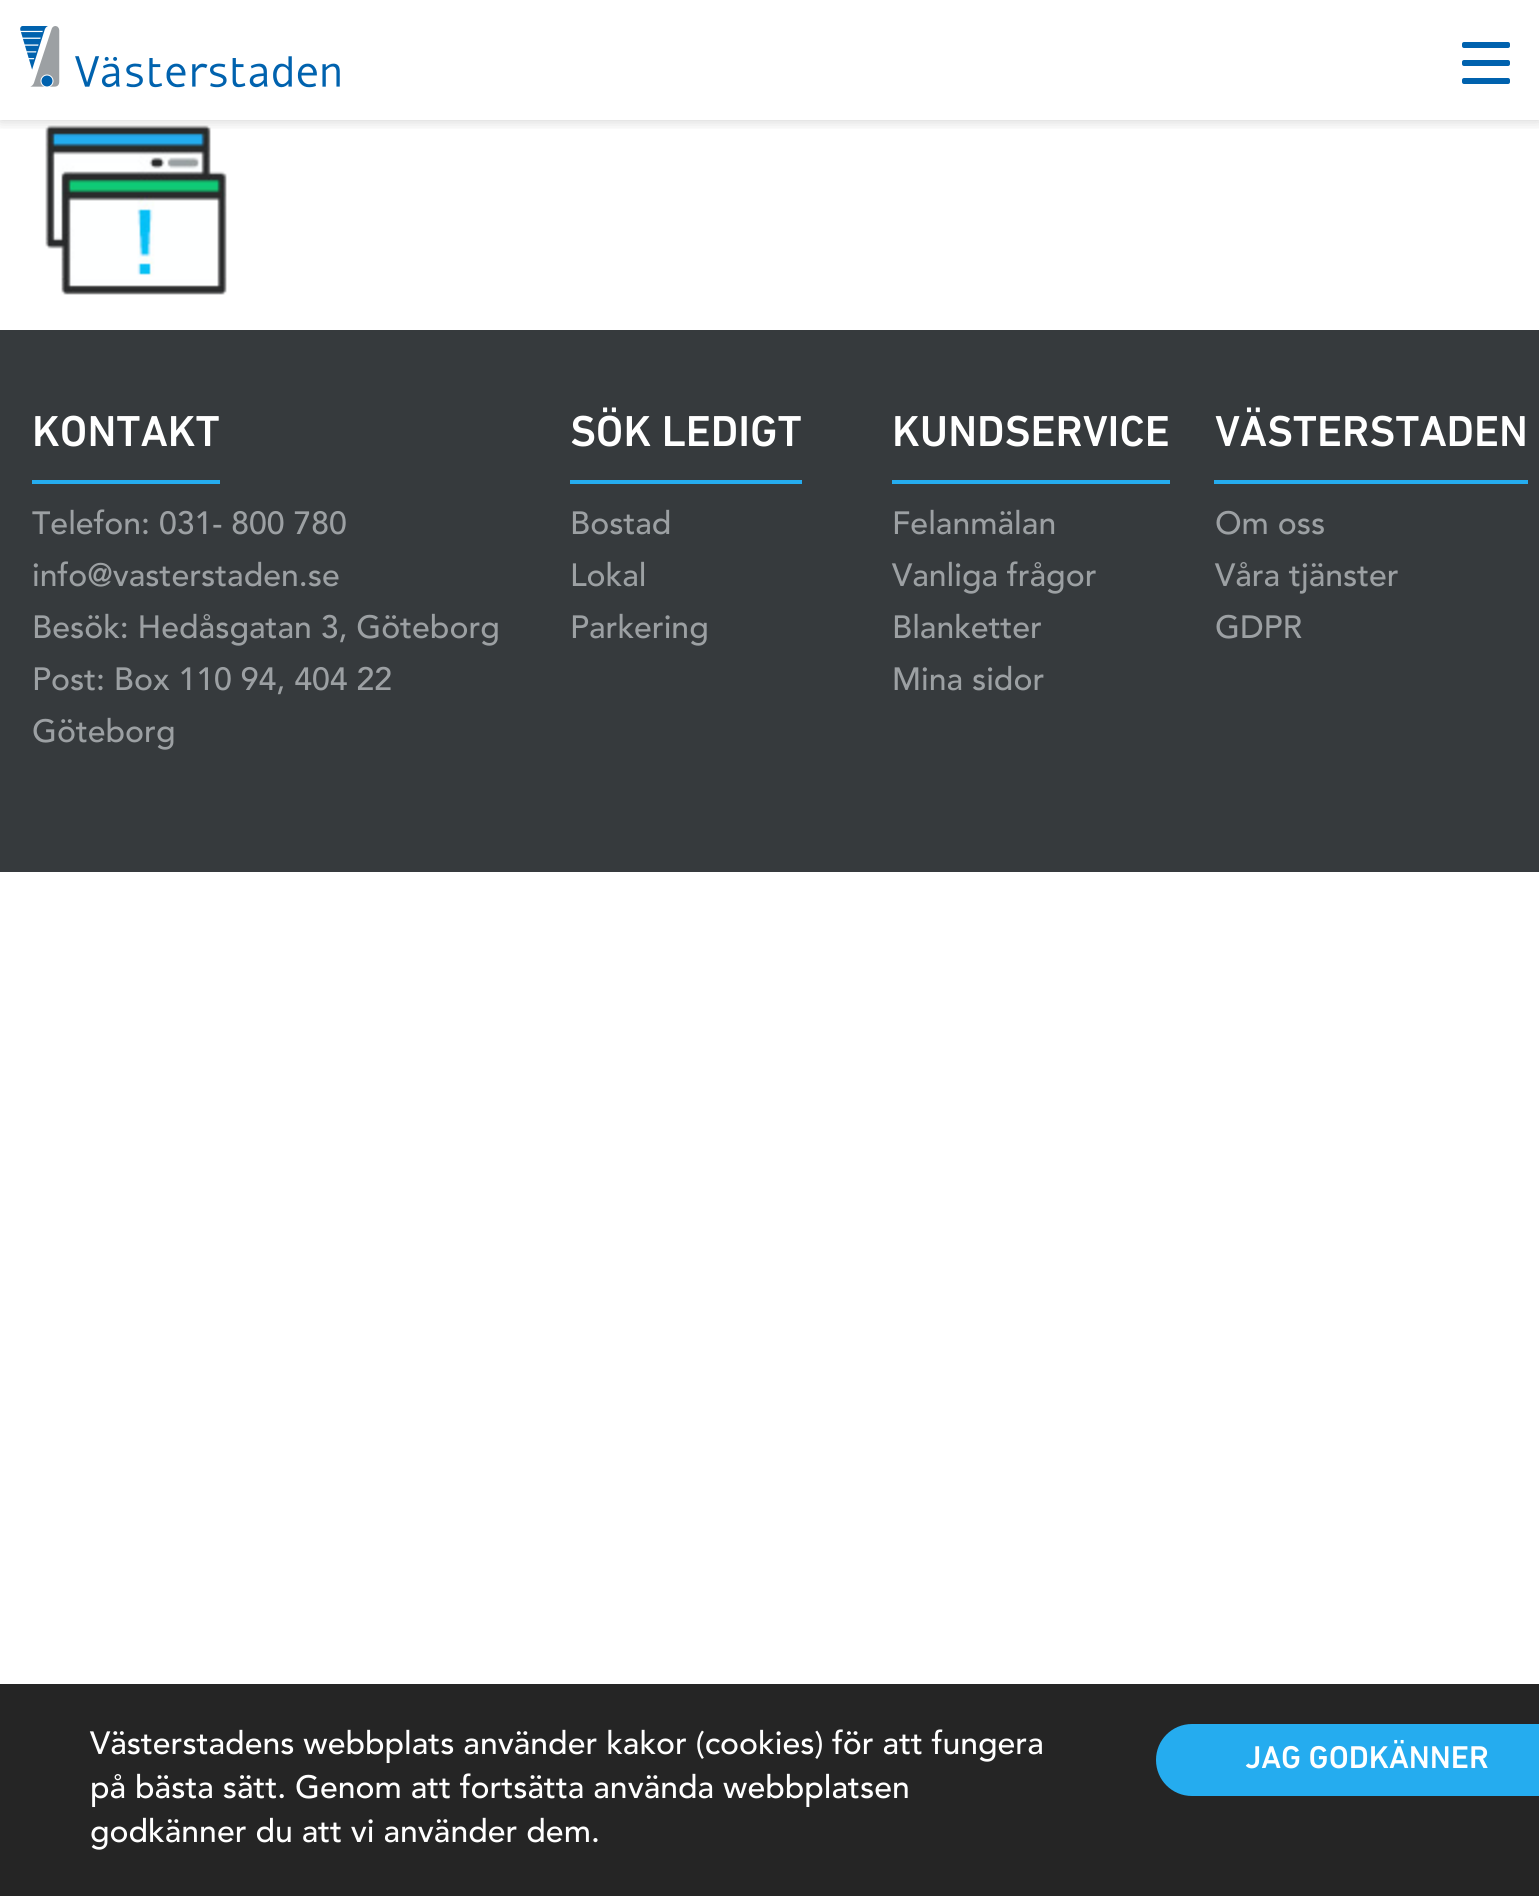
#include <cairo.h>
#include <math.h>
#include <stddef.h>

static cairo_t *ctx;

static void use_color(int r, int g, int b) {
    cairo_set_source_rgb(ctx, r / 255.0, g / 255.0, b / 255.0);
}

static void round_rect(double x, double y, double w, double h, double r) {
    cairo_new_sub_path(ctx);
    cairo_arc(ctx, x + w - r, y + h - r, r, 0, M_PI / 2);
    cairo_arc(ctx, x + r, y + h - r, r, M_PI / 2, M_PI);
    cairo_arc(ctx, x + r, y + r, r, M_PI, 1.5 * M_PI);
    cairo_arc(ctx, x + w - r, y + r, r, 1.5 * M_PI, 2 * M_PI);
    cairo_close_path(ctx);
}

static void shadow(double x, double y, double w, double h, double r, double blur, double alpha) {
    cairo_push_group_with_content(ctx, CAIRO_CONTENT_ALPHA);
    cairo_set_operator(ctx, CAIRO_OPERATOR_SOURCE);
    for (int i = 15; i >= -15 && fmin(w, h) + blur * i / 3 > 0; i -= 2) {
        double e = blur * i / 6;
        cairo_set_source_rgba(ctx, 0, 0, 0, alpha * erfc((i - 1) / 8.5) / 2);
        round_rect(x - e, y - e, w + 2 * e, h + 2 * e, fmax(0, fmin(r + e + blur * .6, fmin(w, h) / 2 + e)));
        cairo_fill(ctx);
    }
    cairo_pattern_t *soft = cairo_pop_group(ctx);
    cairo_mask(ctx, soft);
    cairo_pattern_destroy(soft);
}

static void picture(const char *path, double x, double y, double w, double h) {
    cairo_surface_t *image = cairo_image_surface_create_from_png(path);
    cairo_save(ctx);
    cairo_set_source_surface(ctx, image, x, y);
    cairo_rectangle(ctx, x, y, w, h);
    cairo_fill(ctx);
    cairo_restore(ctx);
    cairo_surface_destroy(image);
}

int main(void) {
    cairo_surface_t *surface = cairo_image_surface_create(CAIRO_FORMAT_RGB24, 1539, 1896);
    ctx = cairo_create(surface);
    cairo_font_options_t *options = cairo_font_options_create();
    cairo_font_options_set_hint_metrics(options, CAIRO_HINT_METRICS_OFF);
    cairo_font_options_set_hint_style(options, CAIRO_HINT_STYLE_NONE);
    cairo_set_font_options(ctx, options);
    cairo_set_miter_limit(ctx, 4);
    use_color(255, 255, 255);
    cairo_paint(ctx);
    picture("img2.png", 45, 125, 182, 170);
    cairo_save(ctx);
    cairo_rectangle(ctx, 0, 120, 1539, 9);
    cairo_clip(ctx);
    use_color(0, 0, 0);
    shadow(0, 0, 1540, 120, 0, 7, 0.2);
    cairo_restore(ctx);
    picture("img1.png", 20, 26, 320, 62);
    use_color(0, 98, 174);
    round_rect(1462, 42, 48, 6, 2);
    cairo_fill(ctx);
    round_rect(1462, 60, 48, 6, 2);
    cairo_fill(ctx);
    round_rect(1462, 78, 48, 6, 2);
    cairo_fill(ctx);
    use_color(54, 58, 61);
    cairo_rectangle(ctx, 0, 330, 1539, 542);
    cairo_fill(ctx);
    use_color(37, 172, 239);
    cairo_rectangle(ctx, 32, 480, 188, 4);
    cairo_fill(ctx);
    cairo_select_font_face(ctx, "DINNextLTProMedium", CAIRO_FONT_SLANT_NORMAL, CAIRO_FONT_WEIGHT_NORMAL);
    cairo_set_font_size(ctx, 44);
    use_color(255, 255, 255);
    cairo_move_to(ctx, 32, 446);
    cairo_show_text(ctx, "KONTAKT");
    cairo_select_font_face(ctx, "Avenir", CAIRO_FONT_SLANT_NORMAL, CAIRO_FONT_WEIGHT_NORMAL);
    cairo_set_font_size(ctx, 32);
    use_color(156, 160, 163);
    cairo_move_to(ctx, 32, 534);
    cairo_show_text(ctx, "Telefon: 031- 800 780");
    cairo_move_to(ctx, 32, 586);
    cairo_show_text(ctx, "info@vasterstaden.se");
    cairo_move_to(ctx, 32, 638);
    cairo_show_text(ctx, "Besök: Hedåsgatan 3, Göteborg");
    cairo_move_to(ctx, 32, 690);
    cairo_show_text(ctx, "Post: Box 110 94, 404 22");
    cairo_move_to(ctx, 32, 742);
    cairo_show_text(ctx, "Göteborg");
    use_color(37, 172, 239);
    cairo_rectangle(ctx, 570, 480, 232, 4);
    cairo_fill(ctx);
    cairo_select_font_face(ctx, "DINNextLTProMedium", CAIRO_FONT_SLANT_NORMAL, CAIRO_FONT_WEIGHT_NORMAL);
    cairo_set_font_size(ctx, 44);
    use_color(255, 255, 255);
    cairo_move_to(ctx, 570, 446);
    cairo_show_text(ctx, "SÖK LEDIGT");
    cairo_select_font_face(ctx, "Avenir", CAIRO_FONT_SLANT_NORMAL, CAIRO_FONT_WEIGHT_NORMAL);
    cairo_set_font_size(ctx, 32);
    use_color(156, 160, 163);
    cairo_move_to(ctx, 570, 534);
    cairo_show_text(ctx, "Bostad");
    cairo_move_to(ctx, 570, 586);
    cairo_show_text(ctx, "Lokal");
    cairo_move_to(ctx, 570, 638);
    cairo_show_text(ctx, "Parkering");
    use_color(37, 172, 239);
    cairo_rectangle(ctx, 892, 480, 278, 4);
    cairo_fill(ctx);
    cairo_select_font_face(ctx, "DINNextLTProMedium", CAIRO_FONT_SLANT_NORMAL, CAIRO_FONT_WEIGHT_NORMAL);
    cairo_set_font_size(ctx, 44);
    use_color(255, 255, 255);
    cairo_move_to(ctx, 892, 446);
    cairo_show_text(ctx, "KUNDSERVICE");
    cairo_select_font_face(ctx, "Avenir", CAIRO_FONT_SLANT_NORMAL, CAIRO_FONT_WEIGHT_NORMAL);
    cairo_set_font_size(ctx, 32);
    use_color(156, 160, 163);
    cairo_move_to(ctx, 892, 534);
    cairo_show_text(ctx, "Felanmälan");
    cairo_move_to(ctx, 892, 586);
    cairo_show_text(ctx, "Vanliga frågor");
    cairo_move_to(ctx, 892, 638);
    cairo_show_text(ctx, "Blanketter");
    cairo_move_to(ctx, 892, 690);
    cairo_show_text(ctx, "Mina sidor");
    use_color(37, 172, 239);
    cairo_rectangle(ctx, 1214, 480, 314, 4);
    cairo_fill(ctx);
    cairo_select_font_face(ctx, "DINNextLTProMedium", CAIRO_FONT_SLANT_NORMAL, CAIRO_FONT_WEIGHT_NORMAL);
    cairo_set_font_size(ctx, 44);
    use_color(255, 255, 255);
    cairo_move_to(ctx, 1215, 446);
    cairo_show_text(ctx, "VÄSTERSTADEN");
    cairo_select_font_face(ctx, "Avenir", CAIRO_FONT_SLANT_NORMAL, CAIRO_FONT_WEIGHT_NORMAL);
    cairo_set_font_size(ctx, 32);
    use_color(156, 160, 163);
    cairo_move_to(ctx, 1215, 534);
    cairo_show_text(ctx, "Om oss");
    cairo_move_to(ctx, 1215, 586);
    cairo_show_text(ctx, "Våra tjänster");
    cairo_move_to(ctx, 1215, 638);
    cairo_show_text(ctx, "GDPR");
    use_color(37, 37, 37);
    cairo_rectangle(ctx, 0, 1684, 1539, 212);
    cairo_fill(ctx);
    use_color(255, 255, 255);
    cairo_move_to(ctx, 90, 1754);
    cairo_show_text(ctx, "Västerstadens webbplats använder kakor (cookies) för att fungera");
    cairo_move_to(ctx, 90, 1798);
    cairo_show_text(ctx, "på bästa sätt. Genom att fortsätta använda webbplatsen");
    cairo_move_to(ctx, 90, 1842);
    cairo_show_text(ctx, "godkänner du att vi använder dem.");
    use_color(37, 172, 239);
    cairo_new_path(ctx);
    cairo_move_to(ctx, 1192, 1724);
    cairo_line_to(ctx, 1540, 1724);
    cairo_line_to(ctx, 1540, 1796);
    cairo_line_to(ctx, 1192, 1796);
    cairo_curve_to(ctx, 1172, 1796, 1156, 1780, 1156, 1760);
    cairo_curve_to(ctx, 1156, 1740, 1172, 1724, 1192, 1724);
    cairo_close_path(ctx);
    cairo_fill(ctx);
    cairo_select_font_face(ctx, "DINNextLTProMedium", CAIRO_FONT_SLANT_NORMAL, CAIRO_FONT_WEIGHT_NORMAL);
    use_color(255, 255, 255);
    cairo_move_to(ctx, 1245, 1768);
    cairo_show_text(ctx, "JAG GODKÄNNER");
    cairo_surface_write_to_png(surface, "result.png");
    cairo_font_options_destroy(options);
    cairo_destroy(ctx);
    cairo_surface_destroy(surface);
    return 0;
}
